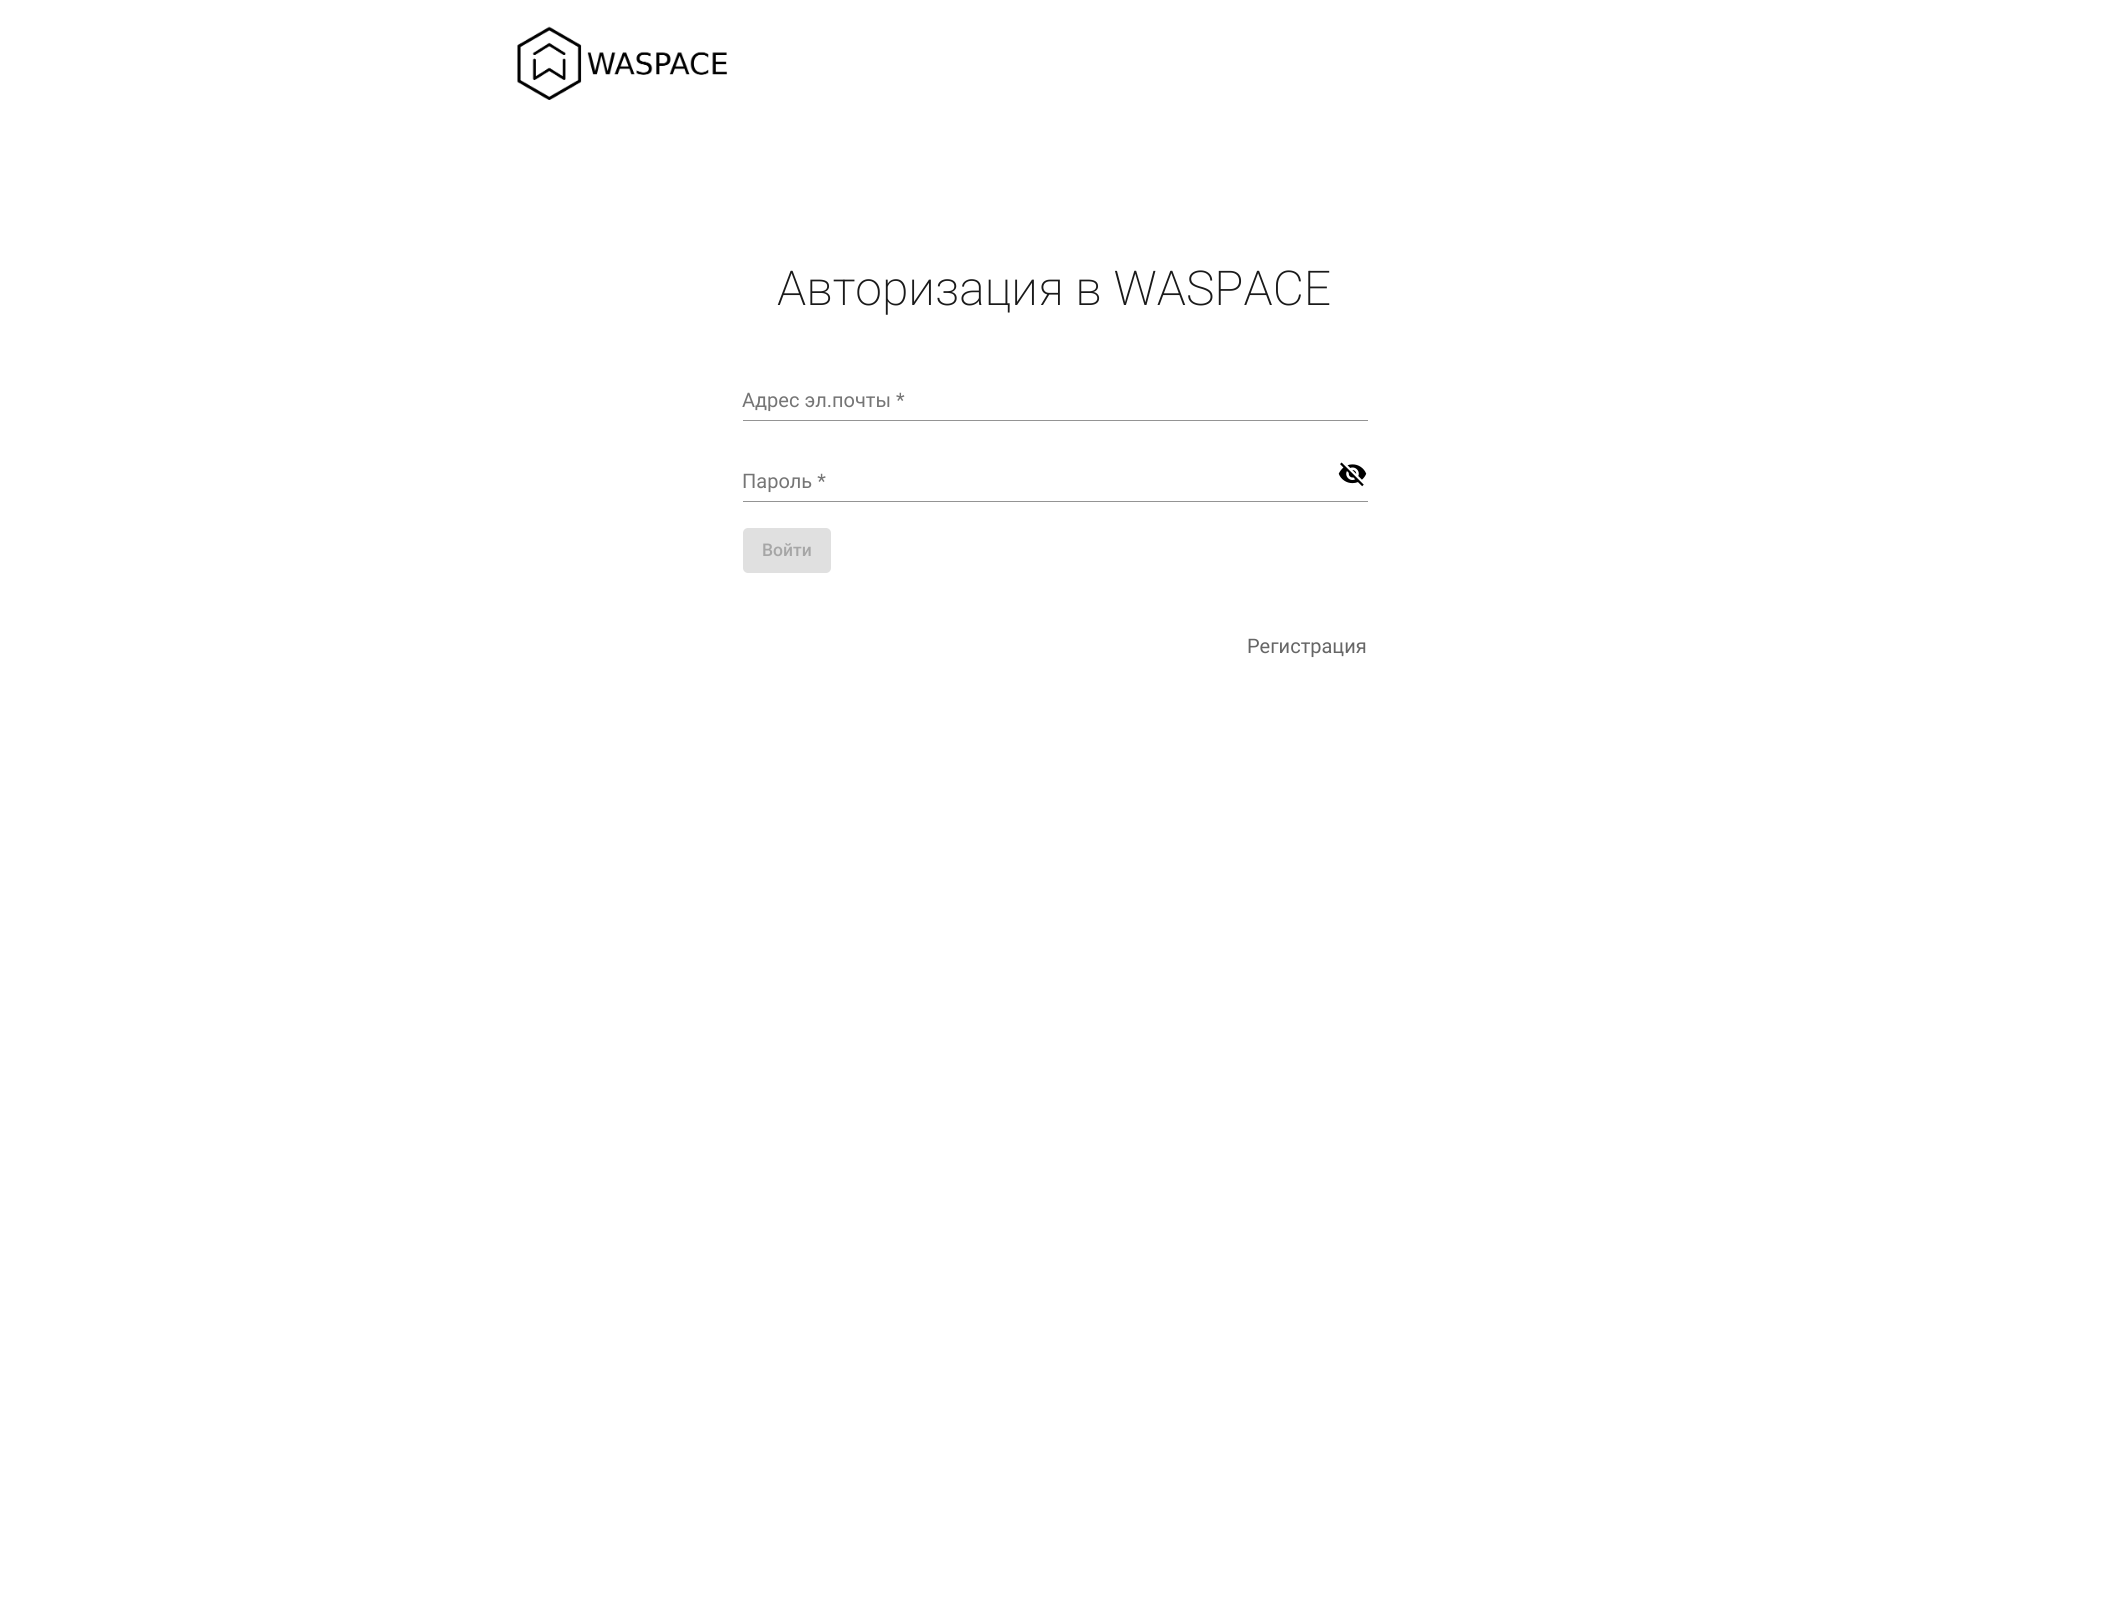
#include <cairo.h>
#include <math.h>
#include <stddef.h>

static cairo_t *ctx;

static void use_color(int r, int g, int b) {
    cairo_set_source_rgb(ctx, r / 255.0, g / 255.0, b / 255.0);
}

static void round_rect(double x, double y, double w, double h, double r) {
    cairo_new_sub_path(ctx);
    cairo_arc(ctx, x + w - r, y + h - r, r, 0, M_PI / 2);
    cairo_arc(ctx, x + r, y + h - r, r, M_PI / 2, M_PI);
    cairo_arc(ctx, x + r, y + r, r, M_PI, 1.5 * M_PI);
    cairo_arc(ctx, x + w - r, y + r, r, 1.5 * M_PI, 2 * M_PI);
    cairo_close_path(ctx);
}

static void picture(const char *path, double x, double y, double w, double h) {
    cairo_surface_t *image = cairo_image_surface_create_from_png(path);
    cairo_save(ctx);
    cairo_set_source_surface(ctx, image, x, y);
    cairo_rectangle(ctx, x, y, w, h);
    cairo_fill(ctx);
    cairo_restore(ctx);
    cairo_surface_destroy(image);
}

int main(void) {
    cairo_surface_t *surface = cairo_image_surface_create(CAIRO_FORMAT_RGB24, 2108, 1610);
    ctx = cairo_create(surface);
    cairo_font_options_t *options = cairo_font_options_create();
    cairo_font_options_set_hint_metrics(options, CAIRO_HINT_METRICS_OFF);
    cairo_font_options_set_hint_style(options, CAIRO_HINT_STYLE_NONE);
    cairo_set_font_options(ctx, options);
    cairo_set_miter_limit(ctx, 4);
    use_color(255, 255, 255);
    cairo_paint(ctx);
    picture("img1.png", 517, 26, 211, 74);
    cairo_select_font_face(ctx, "Roboto ExtraLight", CAIRO_FONT_SLANT_NORMAL, CAIRO_FONT_WEIGHT_NORMAL);
    cairo_set_font_size(ctx, 48);
    use_color(26, 26, 26);
    cairo_move_to(ctx, 777, 305);
    cairo_show_text(ctx, "Авторизация в WASPACE");
    cairo_select_font_face(ctx, "Roboto", CAIRO_FONT_SLANT_NORMAL, CAIRO_FONT_WEIGHT_NORMAL);
    cairo_set_font_size(ctx, 20);
    use_color(117, 117, 117);
    cairo_move_to(ctx, 742, 407);
    cairo_show_text(ctx, "Адрес эл.почты *");
    use_color(148, 148, 148);
    cairo_rectangle(ctx, 743, 420, 625, 1);
    cairo_fill(ctx);
    use_color(117, 117, 117);
    cairo_move_to(ctx, 742, 488);
    cairo_show_text(ctx, "Пароль *");
    picture("img2.png", 1338, 462, 29, 25);
    use_color(148, 148, 148);
    cairo_rectangle(ctx, 743, 501, 625, 1);
    cairo_fill(ctx);
    use_color(224, 224, 224);
    round_rect(743, 528, 88, 45, 5);
    cairo_fill(ctx);
    cairo_select_font_face(ctx, "Roboto Medium", CAIRO_FONT_SLANT_NORMAL, CAIRO_FONT_WEIGHT_NORMAL);
    cairo_set_font_size(ctx, 17.5);
    use_color(166, 166, 166);
    cairo_move_to(ctx, 762, 556);
    cairo_show_text(ctx, "Войти");
    cairo_select_font_face(ctx, "Roboto", CAIRO_FONT_SLANT_NORMAL, CAIRO_FONT_WEIGHT_NORMAL);
    cairo_set_font_size(ctx, 20);
    use_color(102, 102, 102);
    cairo_move_to(ctx, 1247, 653);
    cairo_show_text(ctx, "Регистрация");
    cairo_surface_write_to_png(surface, "result.png");
    cairo_font_options_destroy(options);
    cairo_destroy(ctx);
    cairo_surface_destroy(surface);
    return 0;
}
